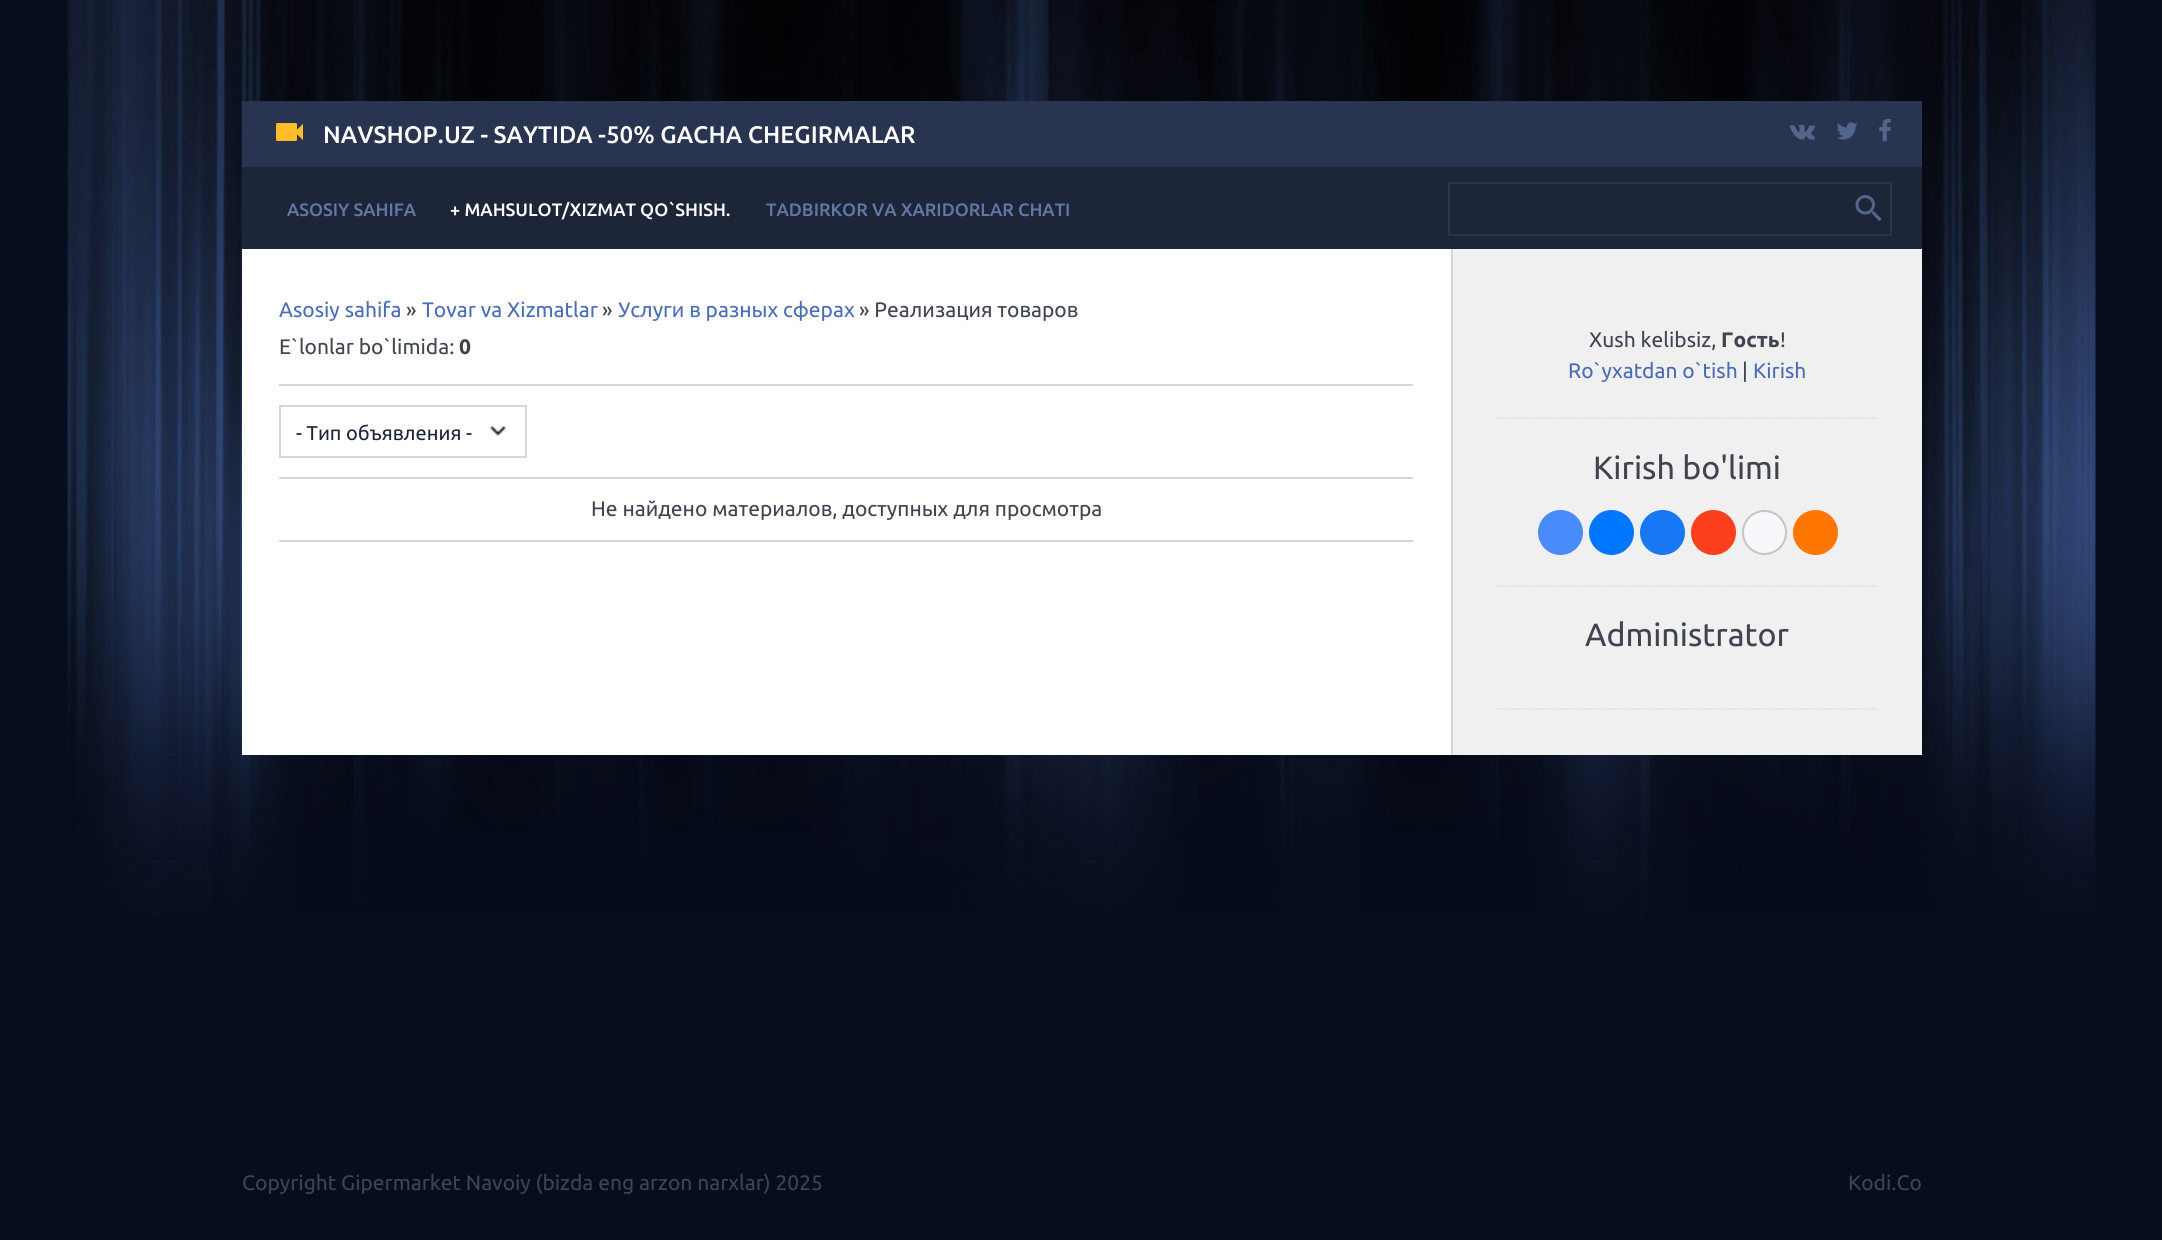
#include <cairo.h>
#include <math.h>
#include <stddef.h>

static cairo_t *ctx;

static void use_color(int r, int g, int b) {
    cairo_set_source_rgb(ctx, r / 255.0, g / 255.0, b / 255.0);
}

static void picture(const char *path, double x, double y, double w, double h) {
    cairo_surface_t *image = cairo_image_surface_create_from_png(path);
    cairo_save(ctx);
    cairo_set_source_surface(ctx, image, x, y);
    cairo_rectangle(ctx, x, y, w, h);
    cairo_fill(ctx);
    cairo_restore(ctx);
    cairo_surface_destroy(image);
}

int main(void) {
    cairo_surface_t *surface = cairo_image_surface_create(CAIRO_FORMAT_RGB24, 2162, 1240);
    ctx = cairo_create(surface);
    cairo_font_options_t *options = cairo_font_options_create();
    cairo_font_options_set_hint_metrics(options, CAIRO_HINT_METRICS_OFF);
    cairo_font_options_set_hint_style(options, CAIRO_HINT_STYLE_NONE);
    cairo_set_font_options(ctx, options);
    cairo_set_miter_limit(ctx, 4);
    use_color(6, 13, 29);
    cairo_paint(ctx);
    picture("img1.png", 67, 0, 2029, 918);
    use_color(29, 37, 56);
    cairo_rectangle(ctx, 242, 167, 1680, 82);
    cairo_fill(ctx);
    use_color(40, 52, 80);
    cairo_rectangle(ctx, 242, 101, 1680, 66);
    cairo_fill(ctx);
    picture("img2.png", 276, 123, 27, 18);
    cairo_select_font_face(ctx, "Ubuntu Medium", CAIRO_FONT_SLANT_NORMAL, CAIRO_FONT_WEIGHT_NORMAL);
    cairo_set_font_size(ctx, 24);
    use_color(255, 255, 255);
    cairo_move_to(ctx, 323, 143);
    cairo_show_text(ctx, "NAVSHOP.UZ - SAYTIDA -50% GACHA CHEGIRMALAR");
    picture("img3.png", 1789, 124, 27, 16);
    picture("img4.png", 1837, 122, 21, 18);
    picture("img5.png", 1879, 119, 12, 23);
    cairo_set_font_size(ctx, 18);
    use_color(99, 119, 166);
    cairo_move_to(ctx, 287, 216);
    cairo_show_text(ctx, "ASOSIY SAHIFA");
    use_color(255, 255, 255);
    cairo_move_to(ctx, 450, 216);
    cairo_show_text(ctx, "+ MAHSULOT/XIZMAT QO`SHISH.");
    use_color(99, 119, 166);
    cairo_move_to(ctx, 766, 216);
    cairo_show_text(ctx, "TADBIRKOR VA XARIDORLAR CHATI");
    cairo_rectangle(ctx, 1449, 183, 442, 52);
    use_color(40, 52, 80);
    cairo_stroke(ctx);
    picture("img6.png", 1855, 195, 27, 27);
    use_color(255, 255, 255);
    cairo_rectangle(ctx, 242, 249, 1209, 506);
    cairo_fill(ctx);
    cairo_select_font_face(ctx, "Ubuntu", CAIRO_FONT_SLANT_NORMAL, CAIRO_FONT_WEIGHT_NORMAL);
    cairo_set_font_size(ctx, 21);
    use_color(74, 107, 184);
    cairo_move_to(ctx, 279, 317);
    cairo_show_text(ctx, "Asosiy sahifa");
    use_color(63, 68, 80);
    cairo_move_to(ctx, 406, 317);
    cairo_show_text(ctx, "»");
    use_color(74, 107, 184);
    cairo_move_to(ctx, 422, 317);
    cairo_show_text(ctx, "Tovar va Xizmatlar");
    use_color(63, 68, 80);
    cairo_move_to(ctx, 602, 317);
    cairo_show_text(ctx, "»");
    use_color(74, 107, 184);
    cairo_move_to(ctx, 618, 317);
    cairo_show_text(ctx, "Услуги в разных сферах");
    use_color(63, 68, 80);
    cairo_move_to(ctx, 859, 317);
    cairo_show_text(ctx, "» Реализация товаров");
    cairo_move_to(ctx, 279, 354);
    cairo_show_text(ctx, "E`lonlar bo`limida:");
    cairo_select_font_face(ctx, "Ubuntu", CAIRO_FONT_SLANT_NORMAL, CAIRO_FONT_WEIGHT_BOLD);
    cairo_move_to(ctx, 459, 354);
    cairo_show_text(ctx, "0");
    use_color(214, 214, 214);
    cairo_rectangle(ctx, 279, 384, 1134, 2);
    cairo_fill(ctx);
    picture("img7.png", 490, 425, 16, 11);
    cairo_rectangle(ctx, 280, 406, 246, 51);
    cairo_stroke(ctx);
    cairo_select_font_face(ctx, "Ubuntu", CAIRO_FONT_SLANT_NORMAL, CAIRO_FONT_WEIGHT_NORMAL);
    cairo_set_font_size(ctx, 20);
    use_color(29, 37, 56);
    cairo_move_to(ctx, 296, 440);
    cairo_show_text(ctx, "- Тип объявления -");
    use_color(214, 214, 214);
    cairo_rectangle(ctx, 279, 477, 1134, 2);
    cairo_fill(ctx);
    cairo_set_font_size(ctx, 21);
    use_color(63, 68, 80);
    cairo_move_to(ctx, 591, 516);
    cairo_show_text(ctx, "Не найдено материалов, доступных для просмотра");
    use_color(214, 214, 214);
    cairo_rectangle(ctx, 279, 540, 1134, 2);
    cairo_fill(ctx);
    use_color(240, 240, 240);
    cairo_rectangle(ctx, 1453, 249, 469, 506);
    cairo_fill(ctx);
    use_color(214, 214, 214);
    cairo_rectangle(ctx, 1451, 249, 2, 506);
    cairo_fill(ctx);
    cairo_new_path(ctx);
    cairo_move_to(ctx, 1497, 418);
    cairo_line_to(ctx, 1876.5, 418);
    use_color(215, 215, 215);
    cairo_set_line_width(ctx, 1.5);
    cairo_set_dash(ctx, (double[]){1.5, 1.5}, 2, 0);
    cairo_stroke(ctx);
    use_color(63, 68, 80);
    cairo_move_to(ctx, 1589, 347);
    cairo_show_text(ctx, "Xush kelibsiz,");
    cairo_select_font_face(ctx, "Ubuntu", CAIRO_FONT_SLANT_NORMAL, CAIRO_FONT_WEIGHT_BOLD);
    cairo_move_to(ctx, 1721, 347);
    cairo_show_text(ctx, "Гость");
    cairo_select_font_face(ctx, "Ubuntu", CAIRO_FONT_SLANT_NORMAL, CAIRO_FONT_WEIGHT_NORMAL);
    cairo_move_to(ctx, 1780, 347);
    cairo_show_text(ctx, "!");
    use_color(74, 107, 184);
    cairo_move_to(ctx, 1568, 378);
    cairo_show_text(ctx, "Ro`yxatdan o`tish");
    use_color(63, 68, 80);
    cairo_move_to(ctx, 1742, 378);
    cairo_show_text(ctx, "|");
    use_color(74, 107, 184);
    cairo_move_to(ctx, 1753, 378);
    cairo_show_text(ctx, "Kirish");
    cairo_new_path(ctx);
    cairo_move_to(ctx, 1497, 586);
    cairo_line_to(ctx, 1876.5, 586);
    use_color(215, 215, 215);
    cairo_stroke(ctx);
    cairo_set_font_size(ctx, 32.25);
    use_color(63, 68, 80);
    cairo_move_to(ctx, 1593, 479);
    cairo_show_text(ctx, "Kirish bo'limi");
    use_color(73, 139, 250);
    cairo_new_path(ctx);
    cairo_arc(ctx, 1560.5, 532.5, 22.5, 0, 2 * M_PI);
    cairo_fill(ctx);
    use_color(0, 119, 255);
    cairo_arc(ctx, 1611.5, 532.5, 22.5, 0, 2 * M_PI);
    cairo_fill(ctx);
    use_color(24, 119, 242);
    cairo_arc(ctx, 1662.5, 532.5, 22.5, 0, 2 * M_PI);
    cairo_fill(ctx);
    use_color(252, 63, 29);
    cairo_arc(ctx, 1713.5, 532.5, 22.5, 0, 2 * M_PI);
    cairo_fill(ctx);
    use_color(248, 248, 252);
    cairo_arc(ctx, 1764.5, 532.5, 21.5, 0, 2 * M_PI);
    cairo_fill_preserve(ctx);
    use_color(196, 196, 196);
    cairo_set_line_width(ctx, 2);
    cairo_set_dash(ctx, NULL, 0, 0);
    cairo_stroke(ctx);
    use_color(255, 119, 0);
    cairo_arc(ctx, 1815.5, 532.5, 22.5, 0, 2 * M_PI);
    cairo_fill(ctx);
    cairo_new_path(ctx);
    cairo_move_to(ctx, 1497, 709);
    cairo_line_to(ctx, 1876.5, 709);
    use_color(215, 215, 215);
    cairo_set_line_width(ctx, 1.5);
    cairo_set_dash(ctx, (double[]){1.5, 1.5}, 2, 0);
    cairo_stroke(ctx);
    use_color(63, 68, 80);
    cairo_move_to(ctx, 1585, 646);
    cairo_show_text(ctx, "Administrator");
    cairo_set_font_size(ctx, 21);
    cairo_move_to(ctx, 242, 1190);
    cairo_show_text(ctx, "Copyright Gipermarket Navoiy (bizda eng arzon narxlar) 2025");
    cairo_move_to(ctx, 1848, 1190);
    cairo_show_text(ctx, "Kodi.Co");
    cairo_surface_write_to_png(surface, "result.png");
    cairo_font_options_destroy(options);
    cairo_destroy(ctx);
    cairo_surface_destroy(surface);
    return 0;
}
